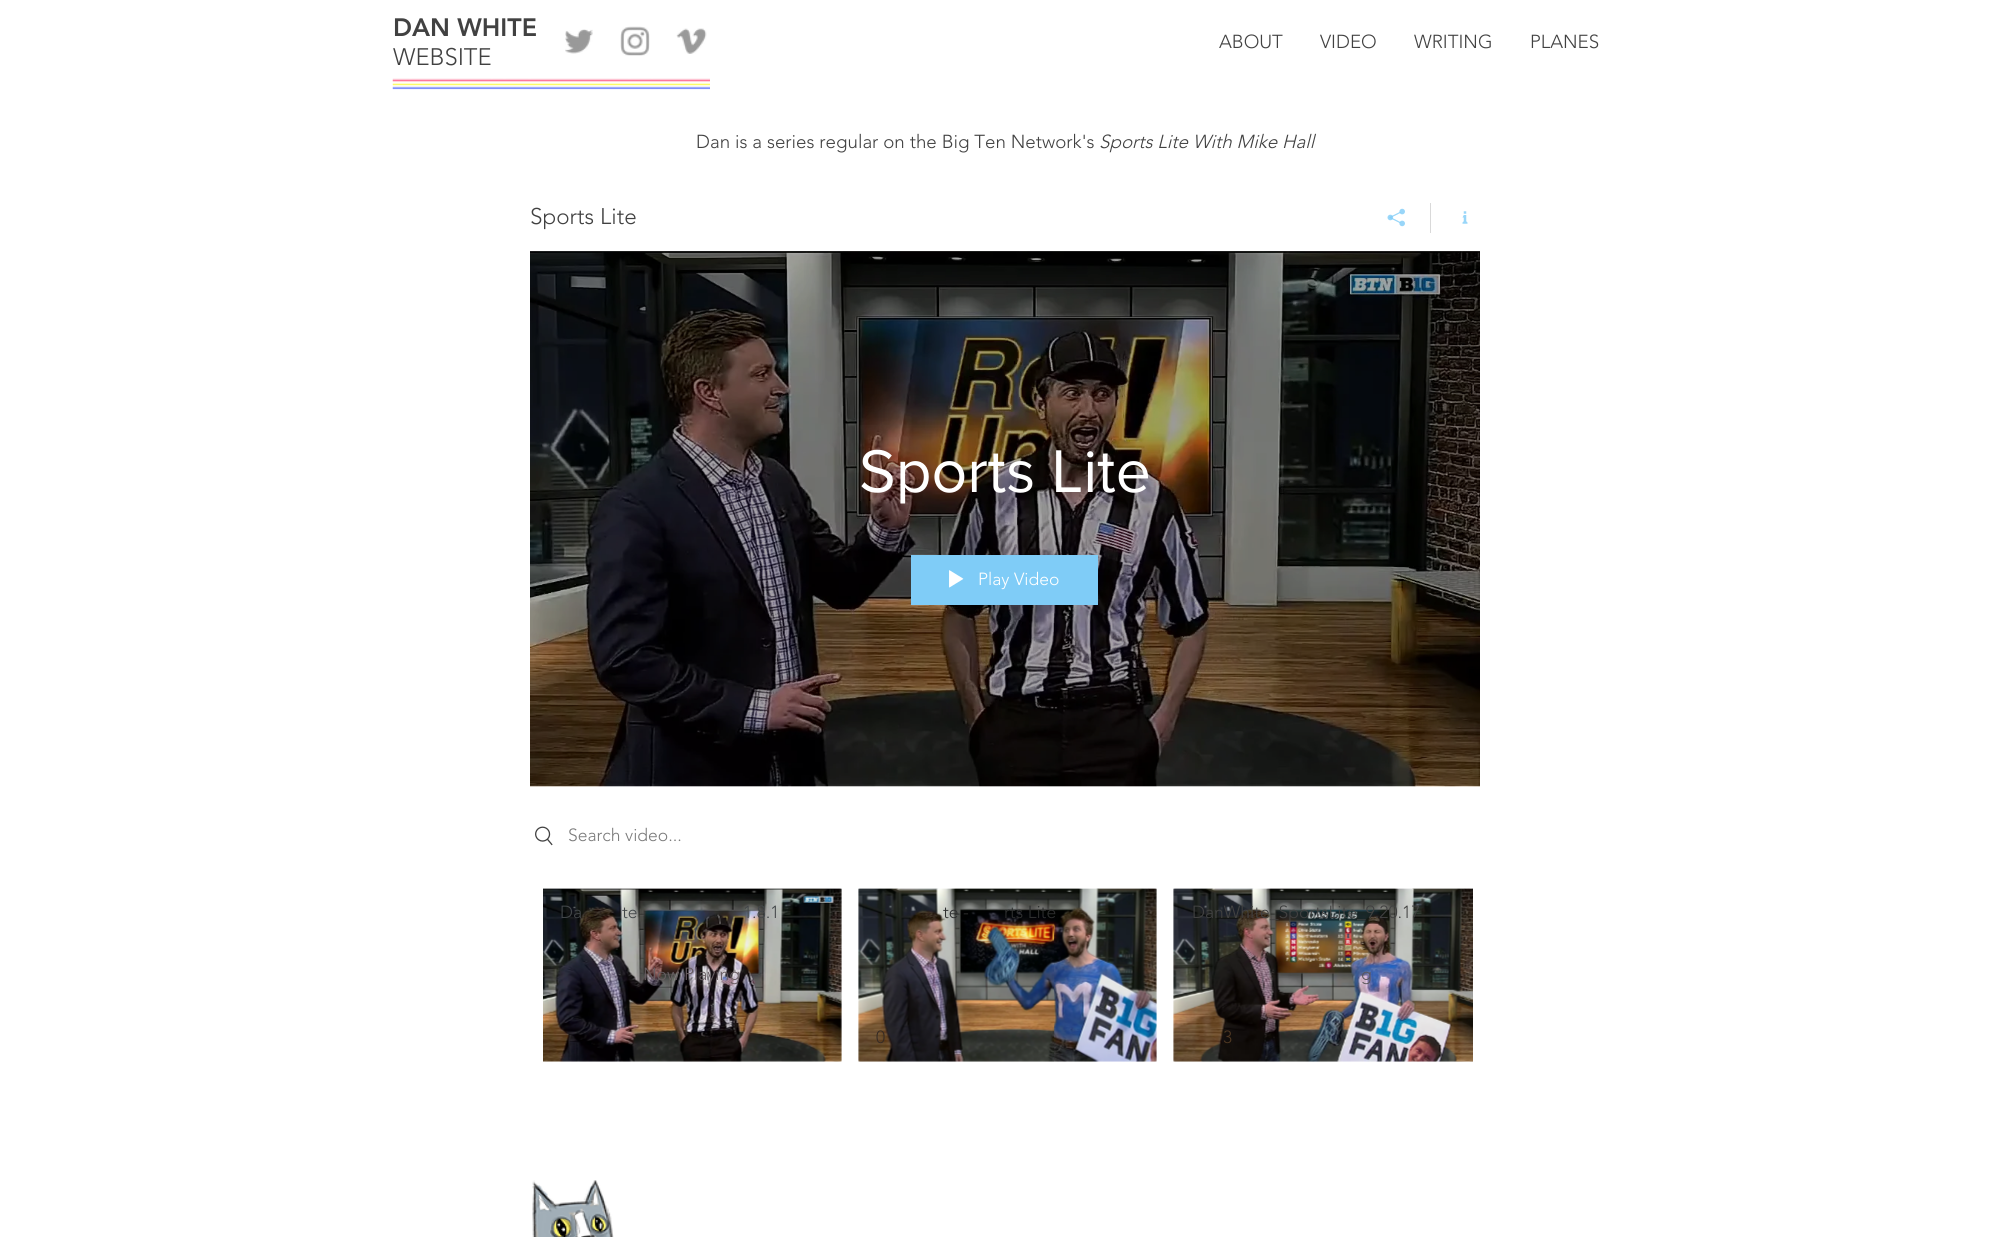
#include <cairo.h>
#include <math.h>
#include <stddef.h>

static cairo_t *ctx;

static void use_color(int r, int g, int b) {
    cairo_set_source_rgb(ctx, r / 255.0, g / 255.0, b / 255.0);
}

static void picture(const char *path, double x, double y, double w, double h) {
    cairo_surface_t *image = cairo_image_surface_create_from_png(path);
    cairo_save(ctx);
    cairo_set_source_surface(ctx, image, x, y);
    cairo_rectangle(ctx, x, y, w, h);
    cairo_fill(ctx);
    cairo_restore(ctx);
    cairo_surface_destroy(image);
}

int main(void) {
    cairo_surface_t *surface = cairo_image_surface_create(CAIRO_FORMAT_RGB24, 2009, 1237);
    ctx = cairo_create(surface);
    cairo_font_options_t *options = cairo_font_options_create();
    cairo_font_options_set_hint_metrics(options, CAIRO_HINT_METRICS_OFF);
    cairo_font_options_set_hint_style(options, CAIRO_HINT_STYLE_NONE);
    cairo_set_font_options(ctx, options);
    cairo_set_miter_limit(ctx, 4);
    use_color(255, 255, 255);
    cairo_paint(ctx);
    cairo_select_font_face(ctx, "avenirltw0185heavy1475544 Black", CAIRO_FONT_SLANT_NORMAL, CAIRO_FONT_WEIGHT_NORMAL);
    cairo_set_font_size(ctx, 25);
    use_color(65, 65, 65);
    cairo_move_to(ctx, 393, 36);
    cairo_show_text(ctx, "DAN WHITE");
    cairo_select_font_face(ctx, "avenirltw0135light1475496 Light", CAIRO_FONT_SLANT_NORMAL, CAIRO_FONT_WEIGHT_NORMAL);
    cairo_set_font_size(ctx, 23.75);
    cairo_move_to(ctx, 393, 65);
    cairo_show_text(ctx, "WEBSITE");
    picture("img1.png", 565, 29, 28, 25);
    picture("img2.png", 620, 26, 30, 30);
    picture("img3.png", 676, 28, 31, 26);
    cairo_set_font_size(ctx, 18.75);
    cairo_move_to(ctx, 1219, 48);
    cairo_show_text(ctx, "ABOUT");
    cairo_move_to(ctx, 1320, 48);
    cairo_show_text(ctx, "VIDEO");
    cairo_move_to(ctx, 1414, 48);
    cairo_show_text(ctx, "WRITING");
    cairo_move_to(ctx, 1530, 48);
    cairo_show_text(ctx, "PLANES");
    picture("img4.png", 392, 78, 318, 12);
    cairo_move_to(ctx, 696, 148);
    cairo_show_text(ctx, "Dan is a series regular on the Big Ten Network's");
    cairo_select_font_face(ctx, "avenirltw0135light1475496 Light", CAIRO_FONT_SLANT_ITALIC, CAIRO_FONT_WEIGHT_NORMAL);
    cairo_move_to(ctx, 1099, 148);
    cairo_show_text(ctx, "Sports Lite With Mike Hall");
    cairo_select_font_face(ctx, "avenirltw0135light1475496 Light", CAIRO_FONT_SLANT_NORMAL, CAIRO_FONT_WEIGHT_NORMAL);
    cairo_set_font_size(ctx, 22.5);
    cairo_move_to(ctx, 530, 224);
    cairo_show_text(ctx, "Sports Lite");
    use_color(217, 217, 217);
    cairo_rectangle(ctx, 1430, 203, 1, 30);
    cairo_fill(ctx);
    picture("img5.png", 1387, 208, 18, 19);
    picture("img6.png", 1462, 211, 6, 13);
    picture("img7.png", 530, 251, 950, 536);
    picture("img8.png", 530, 251, 950, 536);
    cairo_select_font_face(ctx, "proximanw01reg", CAIRO_FONT_SLANT_NORMAL, CAIRO_FONT_WEIGHT_NORMAL);
    cairo_set_font_size(ctx, 62.5);
    use_color(255, 255, 255);
    cairo_move_to(ctx, 859, 492);
    cairo_show_text(ctx, "Sports Lite");
    use_color(127, 204, 247);
    cairo_rectangle(ctx, 911, 555, 187, 50);
    cairo_fill(ctx);
    picture("img9.png", 949, 570, 15, 18);
    cairo_select_font_face(ctx, "avenirltw0135light1475496 Light", CAIRO_FONT_SLANT_NORMAL, CAIRO_FONT_WEIGHT_NORMAL);
    cairo_set_font_size(ctx, 17.5);
    use_color(255, 255, 255);
    cairo_move_to(ctx, 978, 585);
    cairo_show_text(ctx, "Play Video");
    picture("img10.png", 535, 826, 18, 20);
    use_color(122, 122, 122);
    cairo_move_to(ctx, 568, 841);
    cairo_show_text(ctx, "Search video...");
    picture("img11.png", 543, 888, 299, 174);
    picture("img12.png", 543, 889, 299, 173);
    use_color(67, 71, 74);
    cairo_move_to(ctx, 560, 918);
    cairo_show_text(ctx, "Da");
    cairo_move_to(ctx, 622, 918);
    cairo_show_text(ctx, "te");
    cairo_move_to(ctx, 743, 918);
    cairo_show_text(ctx, "1.8.1");
    use_color(104, 94, 98);
    cairo_move_to(ctx, 643, 980);
    cairo_show_text(ctx, "Now Playing");
    picture("img13.png", 858, 888, 299, 174);
    picture("img14.png", 858, 889, 299, 173);
    use_color(46, 47, 47);
    cairo_move_to(ctx, 943, 918);
    cairo_show_text(ctx, "te -");
    cairo_move_to(ctx, 1004, 918);
    cairo_show_text(ctx, "rts Lite");
    use_color(54, 43, 36);
    cairo_move_to(ctx, 876, 1043);
    cairo_show_text(ctx, "0");
    picture("img15.png", 1173, 888, 300, 174);
    picture("img16.png", 1173, 889, 300, 173);
    use_color(65, 65, 65);
    cairo_move_to(ctx, 1192, 918);
    cairo_show_text(ctx, "DanWhite_SportsLite_9.20.17");
    use_color(91, 87, 91);
    cairo_move_to(ctx, 1361, 980);
    cairo_show_text(ctx, "g");
    use_color(79, 56, 34);
    cairo_move_to(ctx, 1223, 1043);
    cairo_show_text(ctx, "3");
    picture("img17.png", 532, 1180, 82, 57);
    cairo_surface_write_to_png(surface, "result.png");
    cairo_font_options_destroy(options);
    cairo_destroy(ctx);
    cairo_surface_destroy(surface);
    return 0;
}
